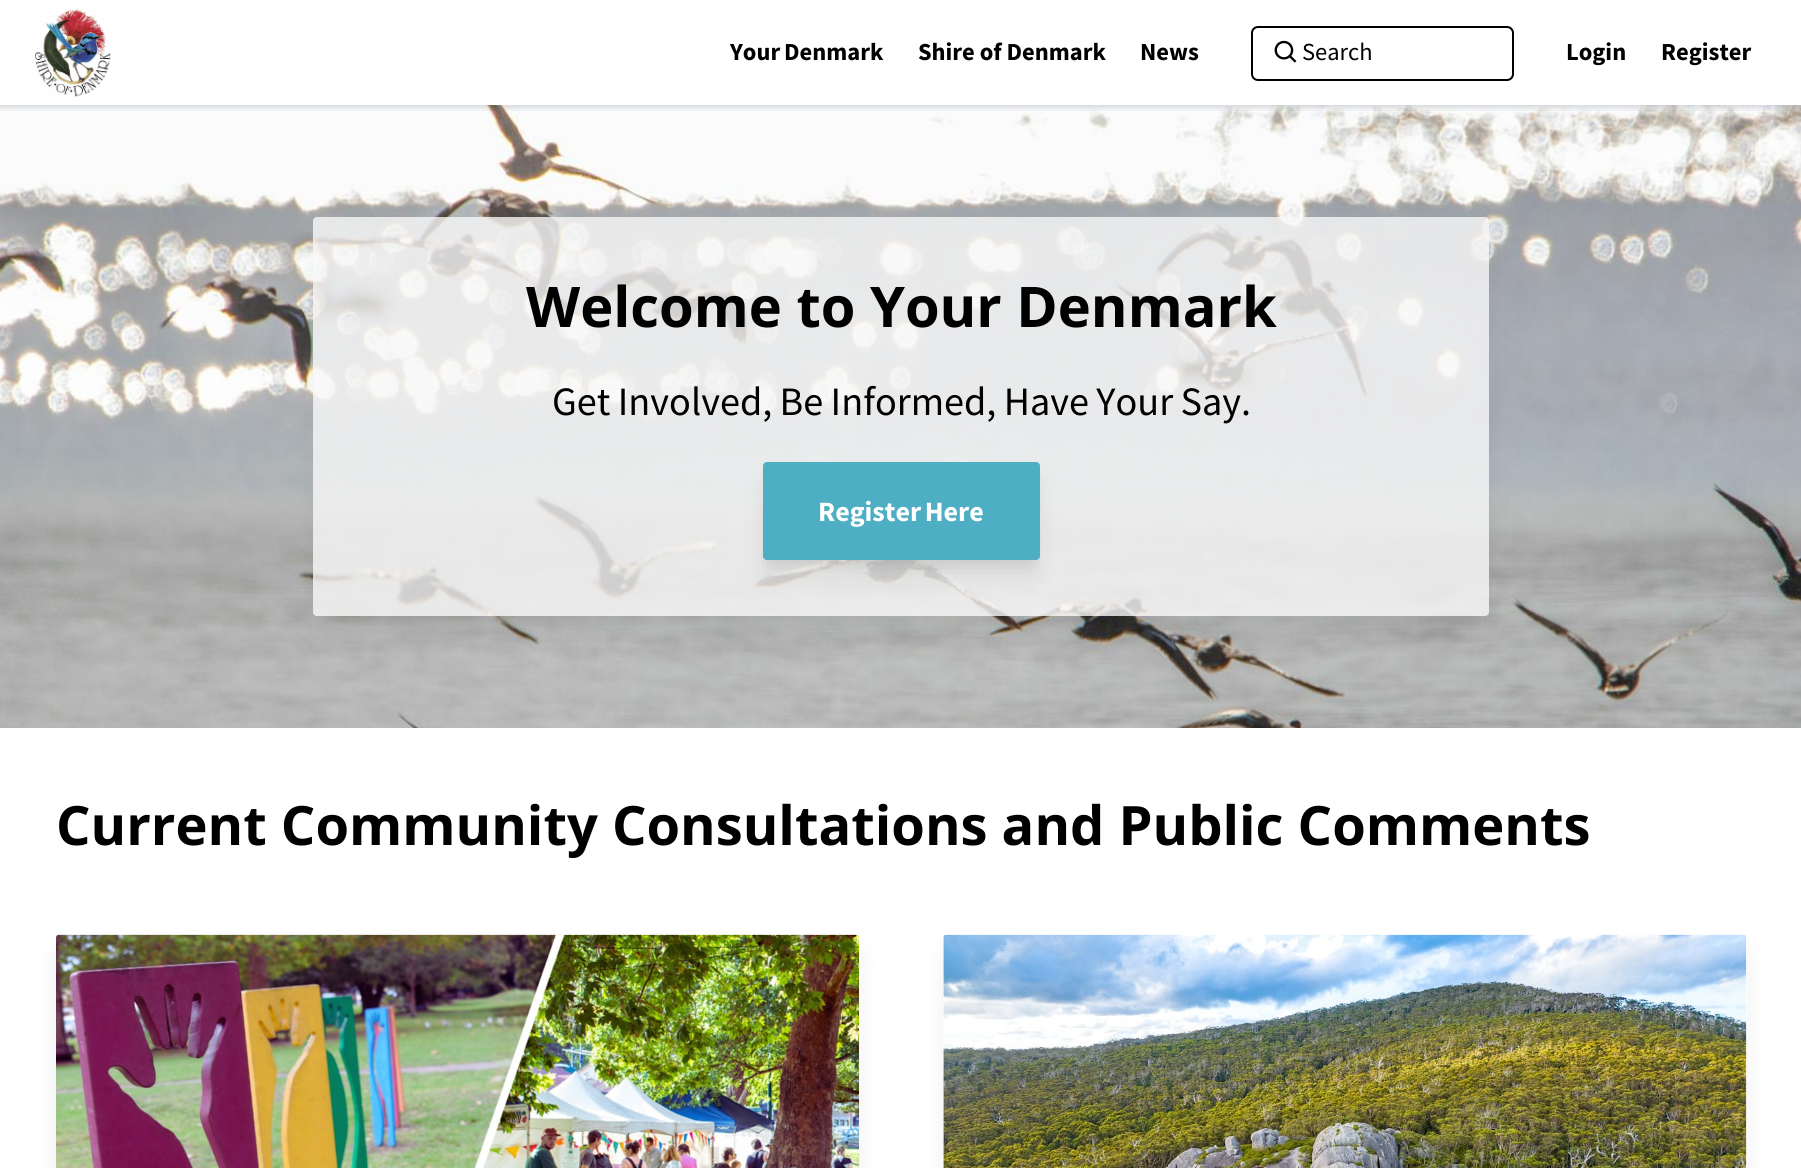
#include <cairo.h>
#include <math.h>
#include <stddef.h>

static cairo_t *ctx;

static void use_color(int r, int g, int b) {
    cairo_set_source_rgb(ctx, r / 255.0, g / 255.0, b / 255.0);
}

static void spaced_text(double x, double y, const char *s, double letter, double word) {
    cairo_move_to(ctx, x, y);
    while (*s) {
        char ch[5] = {0};
        int n = 0;
        do ch[n++] = *s++; while ((*s & 0xC0) == 0x80);
        cairo_show_text(ctx, ch);
        cairo_rel_move_to(ctx, letter + word * (*ch == ' '), 0);
    }
}

static void round_rect(double x, double y, double w, double h, double r) {
    cairo_new_sub_path(ctx);
    cairo_arc(ctx, x + w - r, y + h - r, r, 0, M_PI / 2);
    cairo_arc(ctx, x + r, y + h - r, r, M_PI / 2, M_PI);
    cairo_arc(ctx, x + r, y + r, r, M_PI, 1.5 * M_PI);
    cairo_arc(ctx, x + w - r, y + r, r, 1.5 * M_PI, 2 * M_PI);
    cairo_close_path(ctx);
}

static void shadow(double x, double y, double w, double h, double r, double blur, double alpha) {
    cairo_push_group_with_content(ctx, CAIRO_CONTENT_ALPHA);
    cairo_set_operator(ctx, CAIRO_OPERATOR_SOURCE);
    for (int i = 15; i >= -15 && fmin(w, h) + blur * i / 3 > 0; i -= 2) {
        double e = blur * i / 6;
        cairo_set_source_rgba(ctx, 0, 0, 0, alpha * erfc((i - 1) / 8.5) / 2);
        round_rect(x - e, y - e, w + 2 * e, h + 2 * e, fmax(0, fmin(r + e + blur * .6, fmin(w, h) / 2 + e)));
        cairo_fill(ctx);
    }
    cairo_pattern_t *soft = cairo_pop_group(ctx);
    cairo_mask(ctx, soft);
    cairo_pattern_destroy(soft);
}

static void picture(const char *path, double x, double y, double w, double h) {
    cairo_surface_t *image = cairo_image_surface_create_from_png(path);
    cairo_save(ctx);
    cairo_set_source_surface(ctx, image, x, y);
    cairo_rectangle(ctx, x, y, w, h);
    cairo_fill(ctx);
    cairo_restore(ctx);
    cairo_surface_destroy(image);
}

int main(void) {
    cairo_surface_t *surface = cairo_image_surface_create(CAIRO_FORMAT_RGB24, 1801, 1168);
    ctx = cairo_create(surface);
    cairo_font_options_t *options = cairo_font_options_create();
    cairo_font_options_set_hint_metrics(options, CAIRO_HINT_METRICS_OFF);
    cairo_font_options_set_hint_style(options, CAIRO_HINT_STYLE_NONE);
    cairo_set_font_options(ctx, options);
    cairo_set_miter_limit(ctx, 4);
    use_color(255, 255, 255);
    cairo_paint(ctx);
    picture("img3.png", 0, 105, 1801, 623);
    cairo_save(ctx);
    cairo_rectangle(ctx, 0, 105, 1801, 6);
    cairo_clip(ctx);
    use_color(0, 21, 41);
    shadow(0, 2, 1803, 105, 0, 3.5, 0.2);
    cairo_restore(ctx);
    picture("img1.png", 35, 8, 76, 89);
    cairo_select_font_face(ctx, "Source Sans Pro", CAIRO_FONT_SLANT_NORMAL, CAIRO_FONT_WEIGHT_BOLD);
    cairo_set_font_size(ctx, 24.5);
    use_color(0, 0, 0);
    spaced_text(730, 60, "Your Denmark", 0, -1);
    cairo_move_to(ctx, 918, 60);
    cairo_show_text(ctx, "Shire of Denmark");
    cairo_move_to(ctx, 1140, 60);
    cairo_show_text(ctx, "News");
    round_rect(1252, 27, 261, 53, 6);
    cairo_stroke(ctx);
    picture("img2.png", 1274, 40, 23, 23);
    cairo_select_font_face(ctx, "Source Sans Pro", CAIRO_FONT_SLANT_NORMAL, CAIRO_FONT_WEIGHT_NORMAL);
    cairo_move_to(ctx, 1302, 60);
    cairo_show_text(ctx, "Search");
    cairo_select_font_face(ctx, "Source Sans Pro", CAIRO_FONT_SLANT_NORMAL, CAIRO_FONT_WEIGHT_BOLD);
    cairo_move_to(ctx, 1566, 60);
    cairo_show_text(ctx, "Login");
    cairo_move_to(ctx, 1661, 60);
    cairo_show_text(ctx, "Register");
    cairo_save(ctx);
    cairo_set_fill_rule(ctx, CAIRO_FILL_RULE_EVEN_ODD);
    cairo_new_path(ctx);
    cairo_move_to(ctx, 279, 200);
    cairo_line_to(ctx, 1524, 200);
    cairo_line_to(ctx, 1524, 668);
    cairo_line_to(ctx, 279, 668);
    cairo_close_path(ctx);
    cairo_move_to(ctx, 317, 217);
    cairo_line_to(ctx, 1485, 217);
    cairo_curve_to(ctx, 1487, 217, 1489, 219, 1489, 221);
    cairo_line_to(ctx, 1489, 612);
    cairo_curve_to(ctx, 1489, 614, 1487, 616, 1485, 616);
    cairo_line_to(ctx, 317, 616);
    cairo_curve_to(ctx, 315, 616, 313, 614, 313, 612);
    cairo_line_to(ctx, 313, 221);
    cairo_curve_to(ctx, 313, 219, 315, 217, 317, 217);
    cairo_close_path(ctx);
    cairo_clip(ctx);
    use_color(0, 0, 0);
    shadow(319, 240, 1165, 388, 0, 13, 0.1);
    cairo_restore(ctx);
    cairo_set_source_rgba(ctx, 0.969, 0.969, 0.969, 0.8);
    round_rect(313, 217, 1176, 399, 4);
    cairo_fill(ctx);
    cairo_select_font_face(ctx, "Open Sans", CAIRO_FONT_SLANT_NORMAL, CAIRO_FONT_WEIGHT_BOLD);
    cairo_set_font_size(ctx, 56);
    use_color(0, 0, 0);
    cairo_move_to(ctx, 526, 327);
    cairo_show_text(ctx, "Welcome to Your Denmark");
    cairo_select_font_face(ctx, "Source Sans Pro", CAIRO_FONT_SLANT_NORMAL, CAIRO_FONT_WEIGHT_NORMAL);
    cairo_set_font_size(ctx, 40.25);
    spaced_text(552, 415, "Get Involved, Be Informed, Have Your Say.", 0, -0.75);
    use_color(0, 0, 0);
    shadow(767, 473, 269, 91, 0, 5, 0.05);
    shadow(768, 485, 266, 87, 0, 13, 0.1);
    use_color(77, 174, 196);
    round_rect(763, 462, 277, 98, 4);
    cairo_fill(ctx);
    cairo_select_font_face(ctx, "Source Sans Pro", CAIRO_FONT_SLANT_NORMAL, CAIRO_FONT_WEIGHT_BOLD);
    cairo_set_font_size(ctx, 28);
    use_color(255, 255, 255);
    spaced_text(818, 521, "Register Here", 0, -2);
    cairo_select_font_face(ctx, "Open Sans", CAIRO_FONT_SLANT_NORMAL, CAIRO_FONT_WEIGHT_BOLD);
    cairo_set_font_size(ctx, 54.25);
    use_color(0, 0, 0);
    cairo_move_to(ctx, 56, 845);
    cairo_show_text(ctx, "Current Community Consultations and Public Comments");
    use_color(0, 0, 0);
    shadow(61, 957, 793, 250, 0, 13, 0.1);
    picture("img4.png", 56, 934, 803, 234);
    shadow(949, 957, 792, 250, 0, 13, 0.1);
    use_color(255, 255, 255);
    round_rect(943, 935, 804, 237, 4);
    cairo_fill(ctx);
    picture("img5.png", 943, 934, 804, 234);
    cairo_surface_write_to_png(surface, "result.png");
    cairo_font_options_destroy(options);
    cairo_destroy(ctx);
    cairo_surface_destroy(surface);
    return 0;
}
